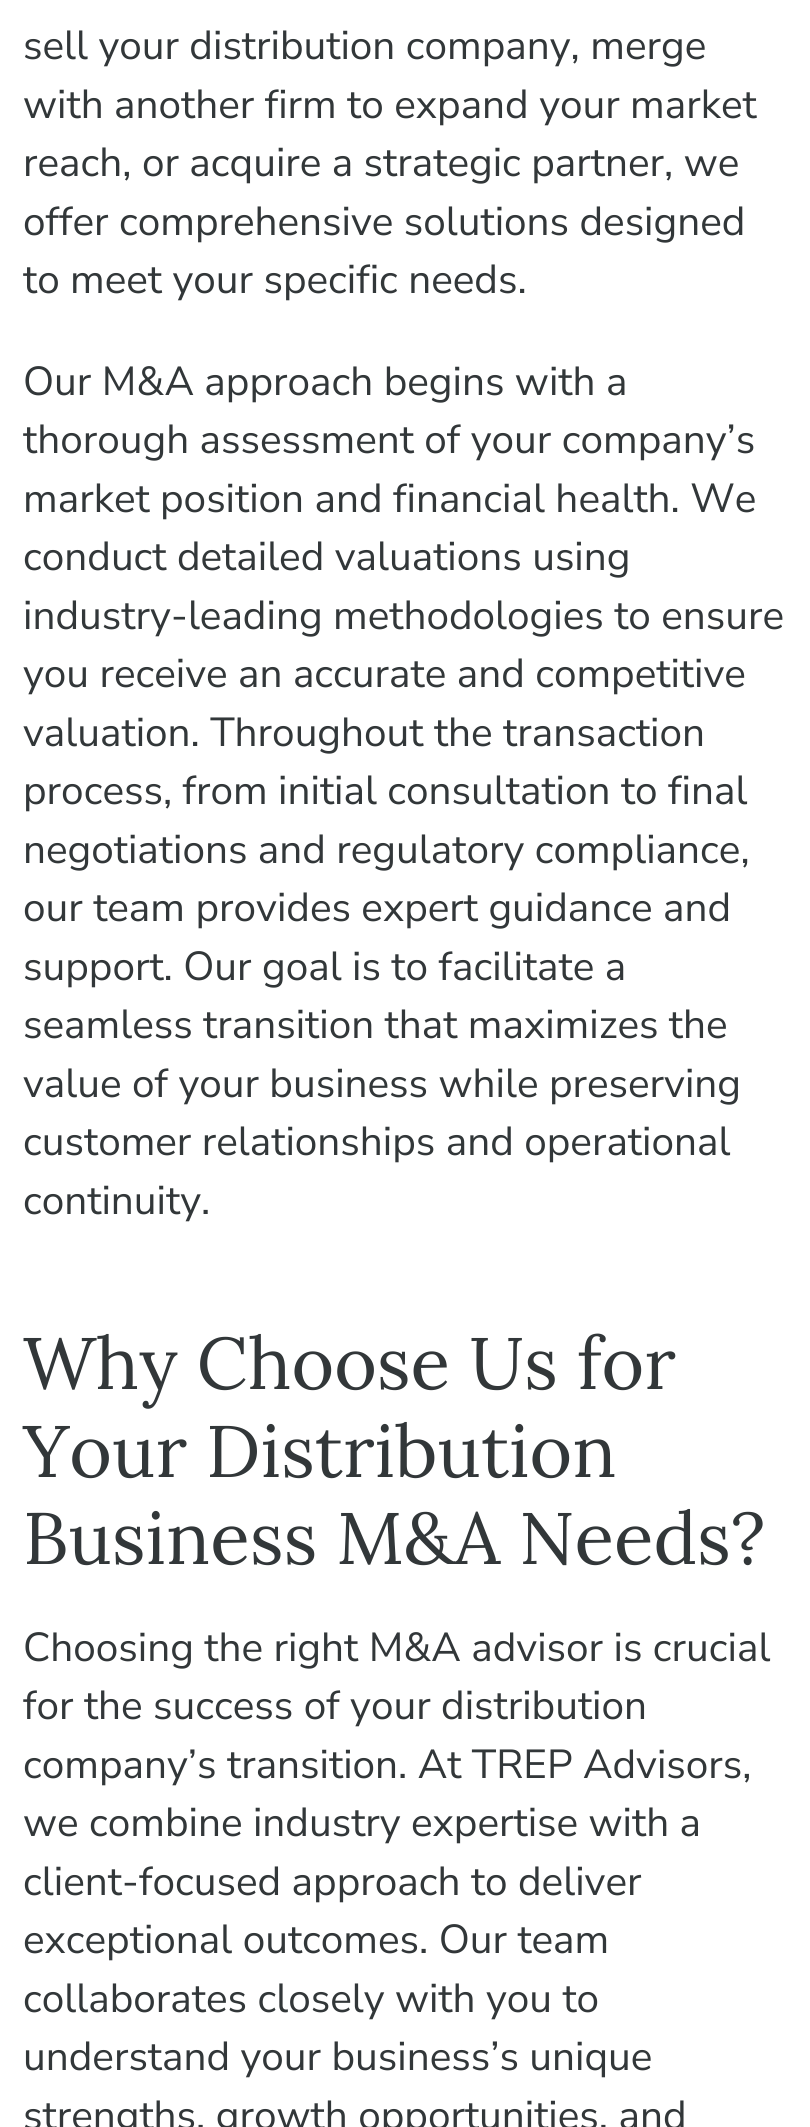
#include <cairo.h>
#include <math.h>
#include <stddef.h>

static cairo_t *ctx;

static void use_color(int r, int g, int b) {
    cairo_set_source_rgb(ctx, r / 255.0, g / 255.0, b / 255.0);
}

int main(void) {
    cairo_surface_t *surface = cairo_image_surface_create(CAIRO_FORMAT_RGB24, 810, 2127);
    ctx = cairo_create(surface);
    cairo_font_options_t *options = cairo_font_options_create();
    cairo_font_options_set_hint_metrics(options, CAIRO_HINT_METRICS_OFF);
    cairo_font_options_set_hint_style(options, CAIRO_HINT_STYLE_NONE);
    cairo_set_font_options(ctx, options);
    cairo_set_miter_limit(ctx, 4);
    use_color(255, 255, 255);
    cairo_paint(ctx);
    cairo_select_font_face(ctx, "Nunito Sans", CAIRO_FONT_SLANT_NORMAL, CAIRO_FONT_WEIGHT_NORMAL);
    cairo_set_font_size(ctx, 40.5);
    use_color(50, 55, 57);
    cairo_move_to(ctx, 23, 59);
    cairo_show_text(ctx, "sell your distribution company, merge");
    cairo_move_to(ctx, 23, 118);
    cairo_show_text(ctx, "with another firm to expand your market");
    cairo_move_to(ctx, 23, 176);
    cairo_show_text(ctx, "reach, or acquire a strategic partner, we");
    cairo_move_to(ctx, 23, 235);
    cairo_show_text(ctx, "offer comprehensive solutions designed");
    cairo_move_to(ctx, 23, 293);
    cairo_show_text(ctx, "to meet your specific needs.");
    cairo_move_to(ctx, 23, 395);
    cairo_show_text(ctx, "Our M&A approach begins with a");
    cairo_move_to(ctx, 23, 453);
    cairo_show_text(ctx, "thorough assessment of your company’s");
    cairo_move_to(ctx, 23, 512);
    cairo_show_text(ctx, "market position and financial health. We");
    cairo_move_to(ctx, 23, 570);
    cairo_show_text(ctx, "conduct detailed valuations using");
    cairo_move_to(ctx, 23, 629);
    cairo_show_text(ctx, "industry-leading methodologies to ensure");
    cairo_move_to(ctx, 23, 687);
    cairo_show_text(ctx, "you receive an accurate and competitive");
    cairo_move_to(ctx, 23, 746);
    cairo_show_text(ctx, "valuation. Throughout the transaction");
    cairo_move_to(ctx, 23, 804);
    cairo_show_text(ctx, "process, from initial consultation to final");
    cairo_move_to(ctx, 23, 863);
    cairo_show_text(ctx, "negotiations and regulatory compliance,");
    cairo_move_to(ctx, 23, 921);
    cairo_show_text(ctx, "our team provides expert guidance and");
    cairo_move_to(ctx, 23, 980);
    cairo_show_text(ctx, "support. Our goal is to facilitate a");
    cairo_move_to(ctx, 23, 1038);
    cairo_show_text(ctx, "seamless transition that maximizes the");
    cairo_move_to(ctx, 23, 1097);
    cairo_show_text(ctx, "value of your business while preserving");
    cairo_move_to(ctx, 23, 1155);
    cairo_show_text(ctx, "customer relationships and operational");
    cairo_move_to(ctx, 23, 1214);
    cairo_show_text(ctx, "continuity.");
    cairo_select_font_face(ctx, "Lora", CAIRO_FONT_SLANT_NORMAL, CAIRO_FONT_WEIGHT_NORMAL);
    cairo_set_font_size(ctx, 72.9);
    cairo_move_to(ctx, 23, 1389);
    cairo_show_text(ctx, "Why Choose Us for");
    cairo_move_to(ctx, 23, 1477);
    cairo_show_text(ctx, "Your Distribution");
    cairo_move_to(ctx, 23, 1564);
    cairo_show_text(ctx, "Business M&A Needs?");
    cairo_select_font_face(ctx, "Nunito Sans", CAIRO_FONT_SLANT_NORMAL, CAIRO_FONT_WEIGHT_NORMAL);
    cairo_set_font_size(ctx, 40.5);
    cairo_move_to(ctx, 23, 1661);
    cairo_show_text(ctx, "Choosing the right M&A advisor is crucial");
    cairo_move_to(ctx, 23, 1719);
    cairo_show_text(ctx, "for the success of your distribution");
    cairo_move_to(ctx, 23, 1778);
    cairo_show_text(ctx, "company’s transition. At TREP Advisors,");
    cairo_move_to(ctx, 23, 1836);
    cairo_show_text(ctx, "we combine industry expertise with a");
    cairo_move_to(ctx, 23, 1895);
    cairo_show_text(ctx, "client-focused approach to deliver");
    cairo_move_to(ctx, 23, 1953);
    cairo_show_text(ctx, "exceptional outcomes. Our team");
    cairo_move_to(ctx, 23, 2012);
    cairo_show_text(ctx, "collaborates closely with you to");
    cairo_move_to(ctx, 23, 2070);
    cairo_show_text(ctx, "understand your business’s unique");
    cairo_move_to(ctx, 23, 2129);
    cairo_show_text(ctx, "strengths, growth opportunities, and");
    cairo_surface_write_to_png(surface, "result.png");
    cairo_font_options_destroy(options);
    cairo_destroy(ctx);
    cairo_surface_destroy(surface);
    return 0;
}
